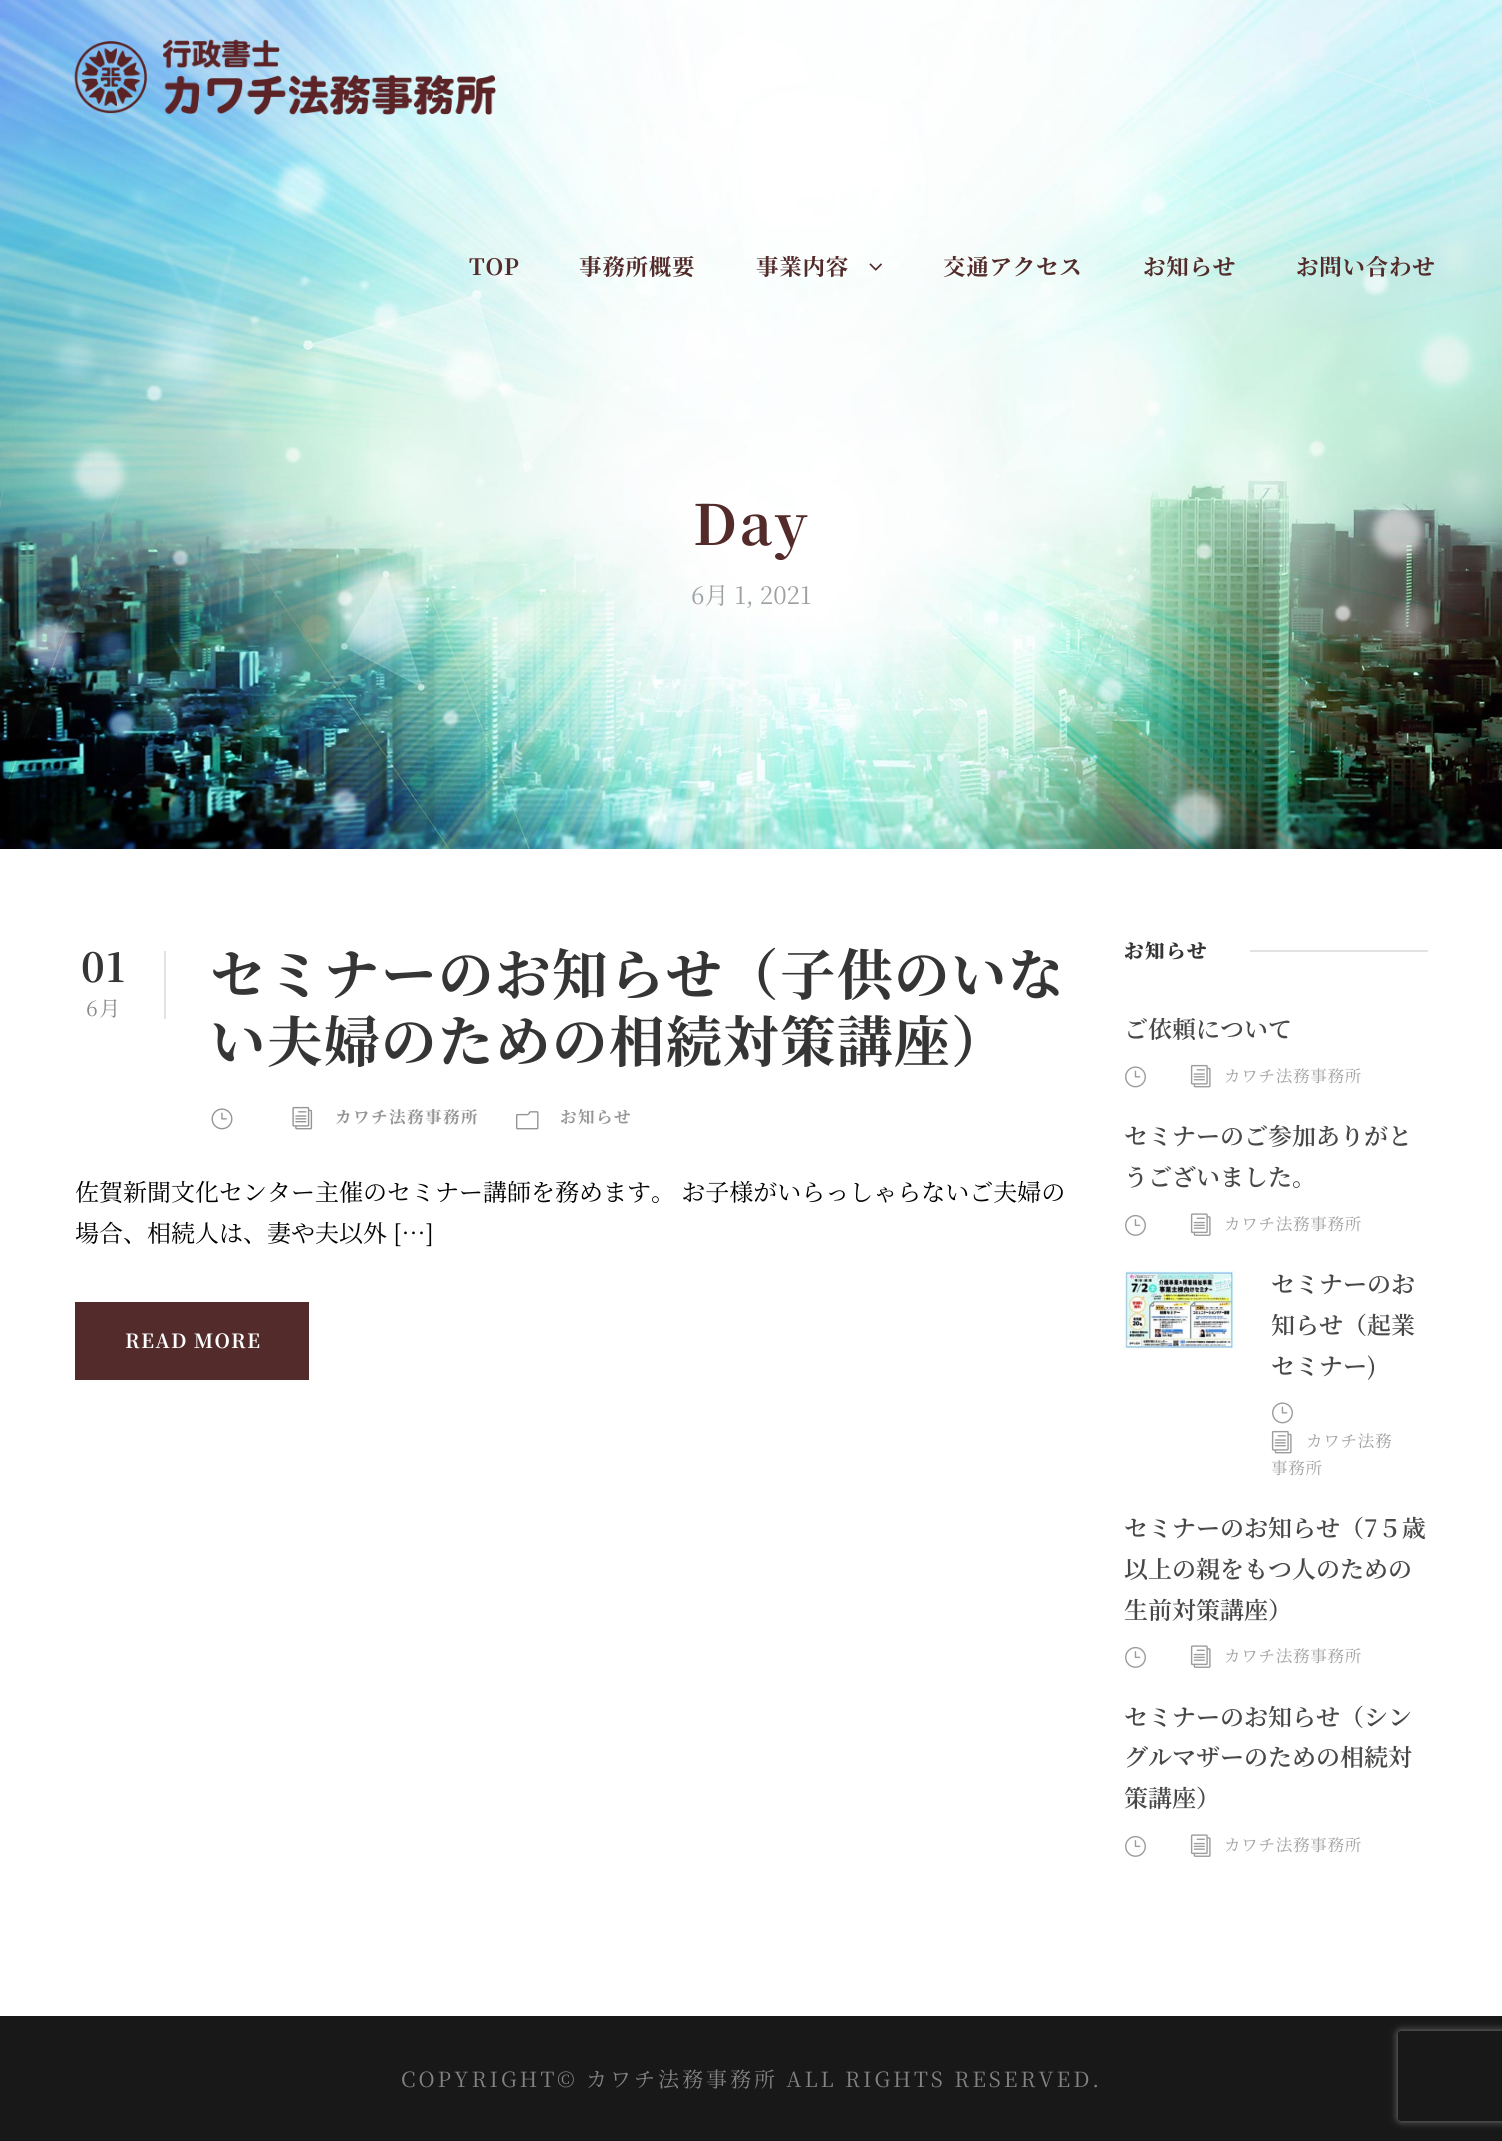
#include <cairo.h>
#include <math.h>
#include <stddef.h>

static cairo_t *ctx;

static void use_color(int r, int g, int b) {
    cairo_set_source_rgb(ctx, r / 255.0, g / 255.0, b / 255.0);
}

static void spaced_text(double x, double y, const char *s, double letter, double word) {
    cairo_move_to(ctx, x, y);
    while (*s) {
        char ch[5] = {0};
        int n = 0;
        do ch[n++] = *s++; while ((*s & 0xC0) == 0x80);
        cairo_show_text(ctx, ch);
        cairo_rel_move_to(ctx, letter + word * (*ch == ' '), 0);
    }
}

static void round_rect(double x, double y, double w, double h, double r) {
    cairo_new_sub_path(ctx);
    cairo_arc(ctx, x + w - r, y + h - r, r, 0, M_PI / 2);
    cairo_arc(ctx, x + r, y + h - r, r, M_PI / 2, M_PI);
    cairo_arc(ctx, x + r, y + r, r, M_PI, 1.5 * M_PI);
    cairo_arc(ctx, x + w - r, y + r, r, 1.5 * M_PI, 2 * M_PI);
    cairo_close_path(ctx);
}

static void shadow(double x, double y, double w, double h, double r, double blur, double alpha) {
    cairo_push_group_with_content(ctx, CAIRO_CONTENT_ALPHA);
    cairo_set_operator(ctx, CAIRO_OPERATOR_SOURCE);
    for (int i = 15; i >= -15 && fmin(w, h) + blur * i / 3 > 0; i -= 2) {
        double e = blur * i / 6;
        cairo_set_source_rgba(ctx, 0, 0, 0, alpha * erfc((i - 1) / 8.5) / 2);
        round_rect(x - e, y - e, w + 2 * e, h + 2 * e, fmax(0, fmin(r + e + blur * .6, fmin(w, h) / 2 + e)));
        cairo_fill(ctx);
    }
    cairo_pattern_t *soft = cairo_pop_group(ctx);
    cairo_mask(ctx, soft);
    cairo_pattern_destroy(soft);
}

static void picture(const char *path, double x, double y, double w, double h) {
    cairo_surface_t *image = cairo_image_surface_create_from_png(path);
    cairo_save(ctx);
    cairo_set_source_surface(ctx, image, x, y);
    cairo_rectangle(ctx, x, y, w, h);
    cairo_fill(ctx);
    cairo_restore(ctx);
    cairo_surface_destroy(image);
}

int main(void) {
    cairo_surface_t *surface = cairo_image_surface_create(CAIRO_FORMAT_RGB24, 1502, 2141);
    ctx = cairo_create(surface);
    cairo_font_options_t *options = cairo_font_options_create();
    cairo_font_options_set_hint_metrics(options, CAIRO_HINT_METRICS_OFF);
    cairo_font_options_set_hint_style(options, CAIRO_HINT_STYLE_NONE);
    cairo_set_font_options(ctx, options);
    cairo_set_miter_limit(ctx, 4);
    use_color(255, 255, 255);
    cairo_paint(ctx);
    picture("img3.png", 0, 0, 1502, 849);
    picture("img1.png", 74, 39, 422, 76);
    cairo_select_font_face(ctx, "Noto Serif JP", CAIRO_FONT_SLANT_NORMAL, CAIRO_FONT_WEIGHT_BOLD);
    cairo_set_font_size(ctx, 22.5);
    use_color(83, 43, 43);
    spaced_text(469, 275, "TOP", 0.75, 0);
    spaced_text(579, 275, "事務所概要", 0.75, 0);
    spaced_text(756, 275, "事業内容", 0.75, 0);
    picture("img2.png", 869, 263, 13, 8);
    spaced_text(943, 275, "交通アクセス", 0.75, 0);
    spaced_text(1143, 275, "お知らせ", 0.75, 0);
    spaced_text(1296, 275, "お問い合わせ", 0.75, 0);
    cairo_set_font_size(ctx, 55.5);
    spaced_text(693, 545, "Day", 3, 0);
    cairo_select_font_face(ctx, "Noto Serif JP", CAIRO_FONT_SLANT_NORMAL, CAIRO_FONT_WEIGHT_NORMAL);
    cairo_set_font_size(ctx, 24);
    use_color(160, 160, 160);
    cairo_move_to(ctx, 691, 604);
    cairo_show_text(ctx, "6月 1, 2021");
    use_color(226, 226, 226);
    cairo_rectangle(ctx, 164, 951, 2, 68);
    cairo_fill(ctx);
    cairo_select_font_face(ctx, "Noto Serif JP", CAIRO_FONT_SLANT_NORMAL, CAIRO_FONT_WEIGHT_BOLD);
    cairo_set_font_size(ctx, 40);
    use_color(53, 53, 53);
    spaced_text(81, 982, "01", 1.5, 0);
    cairo_select_font_face(ctx, "Noto Serif JP", CAIRO_FONT_SLANT_NORMAL, CAIRO_FONT_WEIGHT_NORMAL);
    cairo_set_font_size(ctx, 21);
    use_color(138, 138, 138);
    spaced_text(86, 1016, "6月", 1.5, 0);
    cairo_select_font_face(ctx, "Noto Serif JP", CAIRO_FONT_SLANT_NORMAL, CAIRO_FONT_WEIGHT_BOLD);
    cairo_set_font_size(ctx, 55.5);
    use_color(53, 53, 53);
    spaced_text(210, 995, "セミナーのお知らせ（子供のいな", 1.5, 0);
    spaced_text(210, 1062, "い夫婦のための相続対策講座）", 1.5, 0);
    picture("img4.png", 211, 1108, 22, 22);
    picture("img5.png", 292, 1106, 21, 24);
    cairo_set_font_size(ctx, 16.5);
    use_color(149, 149, 149);
    spaced_text(335, 1123, "カワチ法務事務所", 1.5, 0);
    picture("img6.png", 516, 1111, 23, 19);
    spaced_text(560, 1123, "お知らせ", 1.5, 0);
    cairo_select_font_face(ctx, "Noto Serif JP", CAIRO_FONT_SLANT_NORMAL, CAIRO_FONT_WEIGHT_NORMAL);
    cairo_set_font_size(ctx, 24);
    use_color(0, 0, 0);
    cairo_move_to(ctx, 75, 1201);
    cairo_show_text(ctx, "佐賀新聞文化センター主催のセミナー講師を務めます。 お子様がいらっしゃらないご夫婦の");
    cairo_move_to(ctx, 75, 1242);
    cairo_show_text(ctx, "場合、相続人は、妻や夫以外 […]");
    use_color(83, 43, 43);
    cairo_rectangle(ctx, 75, 1302, 234, 78);
    cairo_fill(ctx);
    cairo_select_font_face(ctx, "Noto Serif JP", CAIRO_FONT_SLANT_NORMAL, CAIRO_FONT_WEIGHT_BOLD);
    cairo_set_font_size(ctx, 19.5);
    use_color(255, 255, 255);
    spaced_text(125, 1348, "READ MORE", 1.25, 0);
    cairo_select_font_face(ctx, "Noto Serif JP Black", CAIRO_FONT_SLANT_NORMAL, CAIRO_FONT_WEIGHT_NORMAL);
    use_color(53, 53, 53);
    spaced_text(1124, 958, "お知らせ", 1.5, 0);
    use_color(226, 226, 226);
    cairo_rectangle(ctx, 1250, 950, 178, 2);
    cairo_fill(ctx);
    cairo_select_font_face(ctx, "Noto Serif JP SemiBold", CAIRO_FONT_SLANT_NORMAL, CAIRO_FONT_WEIGHT_NORMAL);
    cairo_set_font_size(ctx, 24);
    use_color(72, 72, 72);
    cairo_move_to(ctx, 1124, 1038);
    cairo_show_text(ctx, "ご依頼について");
    picture("img7.png", 1125, 1066, 21, 22);
    picture("img8.png", 1190, 1064, 21, 24);
    cairo_select_font_face(ctx, "Noto Serif JP", CAIRO_FONT_SLANT_NORMAL, CAIRO_FONT_WEIGHT_NORMAL);
    cairo_set_font_size(ctx, 16.5);
    use_color(160, 160, 160);
    spaced_text(1224, 1082, "カワチ法務事務所", 0.75, 0);
    cairo_select_font_face(ctx, "Noto Serif JP SemiBold", CAIRO_FONT_SLANT_NORMAL, CAIRO_FONT_WEIGHT_NORMAL);
    cairo_set_font_size(ctx, 24);
    use_color(72, 72, 72);
    cairo_move_to(ctx, 1124, 1145);
    cairo_show_text(ctx, "セミナーのご参加ありがと");
    cairo_move_to(ctx, 1124, 1186);
    cairo_show_text(ctx, "うございました。");
    picture("img9.png", 1125, 1214, 21, 22);
    picture("img10.png", 1190, 1213, 21, 23);
    cairo_select_font_face(ctx, "Noto Serif JP", CAIRO_FONT_SLANT_NORMAL, CAIRO_FONT_WEIGHT_NORMAL);
    cairo_set_font_size(ctx, 16.5);
    use_color(160, 160, 160);
    spaced_text(1224, 1230, "カワチ法務事務所", 0.75, 0);
    picture("img11.png", 1123, 1270, 113, 80);
    cairo_select_font_face(ctx, "Noto Serif JP SemiBold", CAIRO_FONT_SLANT_NORMAL, CAIRO_FONT_WEIGHT_NORMAL);
    cairo_set_font_size(ctx, 24);
    use_color(72, 72, 72);
    cairo_move_to(ctx, 1271, 1293);
    cairo_show_text(ctx, "セミナーのお");
    cairo_move_to(ctx, 1271, 1334);
    cairo_show_text(ctx, "知らせ（起業");
    cairo_move_to(ctx, 1271, 1375);
    cairo_show_text(ctx, "セミナー)");
    picture("img7.png", 1272, 1402, 21, 22);
    picture("img8.png", 1271, 1430, 21, 24);
    cairo_select_font_face(ctx, "Noto Serif JP", CAIRO_FONT_SLANT_NORMAL, CAIRO_FONT_WEIGHT_NORMAL);
    cairo_set_font_size(ctx, 16.5);
    use_color(160, 160, 160);
    spaced_text(1306, 1447, "カワチ法務", 0.75, 0);
    spaced_text(1271, 1474, "事務所", 0.75, 0);
    cairo_select_font_face(ctx, "Noto Serif JP SemiBold", CAIRO_FONT_SLANT_NORMAL, CAIRO_FONT_WEIGHT_NORMAL);
    cairo_set_font_size(ctx, 24);
    use_color(72, 72, 72);
    cairo_move_to(ctx, 1124, 1537);
    cairo_show_text(ctx, "セミナーのお知らせ（7５歳");
    cairo_move_to(ctx, 1124, 1578);
    cairo_show_text(ctx, "以上の親をもつ人のための");
    cairo_move_to(ctx, 1124, 1619);
    cairo_show_text(ctx, "生前対策講座）");
    picture("img9.png", 1125, 1646, 21, 22);
    picture("img10.png", 1190, 1645, 21, 23);
    cairo_select_font_face(ctx, "Noto Serif JP", CAIRO_FONT_SLANT_NORMAL, CAIRO_FONT_WEIGHT_NORMAL);
    cairo_set_font_size(ctx, 16.5);
    use_color(160, 160, 160);
    spaced_text(1224, 1662, "カワチ法務事務所", 0.75, 0);
    cairo_select_font_face(ctx, "Noto Serif JP SemiBold", CAIRO_FONT_SLANT_NORMAL, CAIRO_FONT_WEIGHT_NORMAL);
    cairo_set_font_size(ctx, 24);
    use_color(72, 72, 72);
    cairo_move_to(ctx, 1124, 1726);
    cairo_show_text(ctx, "セミナーのお知らせ（シン");
    cairo_move_to(ctx, 1124, 1766);
    cairo_show_text(ctx, "グルマザーのための相続対");
    cairo_move_to(ctx, 1124, 1807);
    cairo_show_text(ctx, "策講座）");
    picture("img9.png", 1125, 1835, 21, 22);
    picture("img10.png", 1190, 1834, 21, 23);
    cairo_select_font_face(ctx, "Noto Serif JP", CAIRO_FONT_SLANT_NORMAL, CAIRO_FONT_WEIGHT_NORMAL);
    cairo_set_font_size(ctx, 16.5);
    use_color(160, 160, 160);
    spaced_text(1224, 1851, "カワチ法務事務所", 0.75, 0);
    use_color(24, 24, 24);
    cairo_rectangle(ctx, 0, 2016, 1502, 125);
    cairo_fill(ctx);
    cairo_set_font_size(ctx, 21);
    use_color(131, 131, 131);
    spaced_text(401, 2087, "COPYRIGHT© カワチ法務事務所 ALL RIGHTS RESERVED.", 3, 0);
    cairo_save(ctx);
    cairo_set_fill_rule(ctx, CAIRO_FILL_RULE_EVEN_ODD);
    cairo_new_path(ctx);
    cairo_move_to(ctx, 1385, 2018);
    cairo_line_to(ctx, 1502, 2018);
    cairo_line_to(ctx, 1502, 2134);
    cairo_line_to(ctx, 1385, 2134);
    cairo_close_path(ctx);
    cairo_move_to(ctx, 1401, 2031);
    cairo_line_to(ctx, 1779, 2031);
    cairo_curve_to(ctx, 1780.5, 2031, 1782, 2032.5, 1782, 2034);
    cairo_line_to(ctx, 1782, 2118);
    cairo_curve_to(ctx, 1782, 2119.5, 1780.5, 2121, 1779, 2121);
    cairo_line_to(ctx, 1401, 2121);
    cairo_curve_to(ctx, 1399.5, 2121, 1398, 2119.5, 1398, 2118);
    cairo_line_to(ctx, 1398, 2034);
    cairo_curve_to(ctx, 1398, 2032.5, 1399.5, 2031, 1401, 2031);
    cairo_close_path(ctx);
    cairo_clip(ctx);
    use_color(128, 128, 128);
    shadow(1398, 2031, 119, 90, 3, 4, 1);
    cairo_restore(ctx);
    cairo_surface_write_to_png(surface, "result.png");
    cairo_font_options_destroy(options);
    cairo_destroy(ctx);
    cairo_surface_destroy(surface);
    return 0;
}
